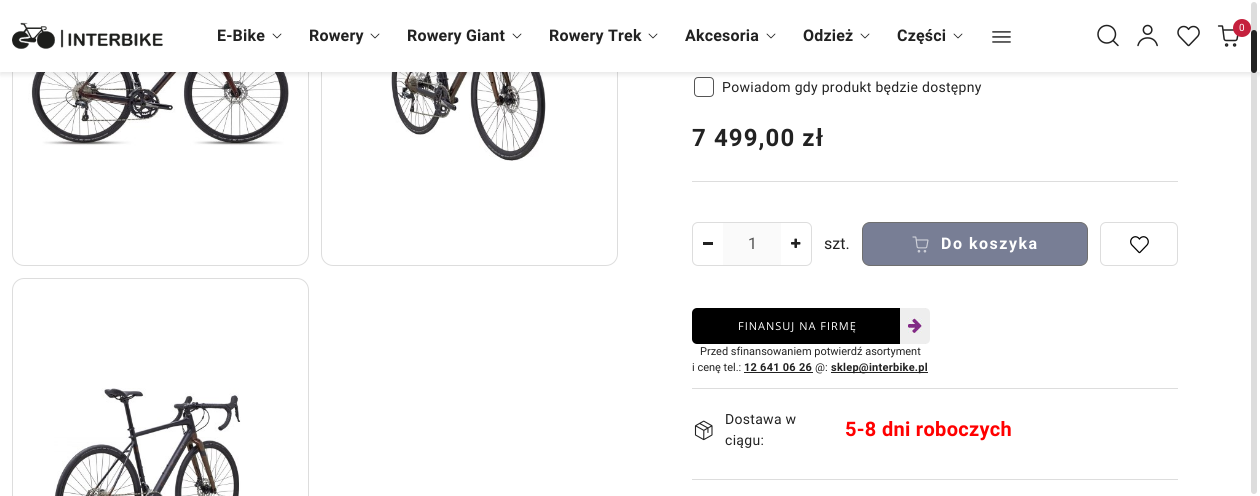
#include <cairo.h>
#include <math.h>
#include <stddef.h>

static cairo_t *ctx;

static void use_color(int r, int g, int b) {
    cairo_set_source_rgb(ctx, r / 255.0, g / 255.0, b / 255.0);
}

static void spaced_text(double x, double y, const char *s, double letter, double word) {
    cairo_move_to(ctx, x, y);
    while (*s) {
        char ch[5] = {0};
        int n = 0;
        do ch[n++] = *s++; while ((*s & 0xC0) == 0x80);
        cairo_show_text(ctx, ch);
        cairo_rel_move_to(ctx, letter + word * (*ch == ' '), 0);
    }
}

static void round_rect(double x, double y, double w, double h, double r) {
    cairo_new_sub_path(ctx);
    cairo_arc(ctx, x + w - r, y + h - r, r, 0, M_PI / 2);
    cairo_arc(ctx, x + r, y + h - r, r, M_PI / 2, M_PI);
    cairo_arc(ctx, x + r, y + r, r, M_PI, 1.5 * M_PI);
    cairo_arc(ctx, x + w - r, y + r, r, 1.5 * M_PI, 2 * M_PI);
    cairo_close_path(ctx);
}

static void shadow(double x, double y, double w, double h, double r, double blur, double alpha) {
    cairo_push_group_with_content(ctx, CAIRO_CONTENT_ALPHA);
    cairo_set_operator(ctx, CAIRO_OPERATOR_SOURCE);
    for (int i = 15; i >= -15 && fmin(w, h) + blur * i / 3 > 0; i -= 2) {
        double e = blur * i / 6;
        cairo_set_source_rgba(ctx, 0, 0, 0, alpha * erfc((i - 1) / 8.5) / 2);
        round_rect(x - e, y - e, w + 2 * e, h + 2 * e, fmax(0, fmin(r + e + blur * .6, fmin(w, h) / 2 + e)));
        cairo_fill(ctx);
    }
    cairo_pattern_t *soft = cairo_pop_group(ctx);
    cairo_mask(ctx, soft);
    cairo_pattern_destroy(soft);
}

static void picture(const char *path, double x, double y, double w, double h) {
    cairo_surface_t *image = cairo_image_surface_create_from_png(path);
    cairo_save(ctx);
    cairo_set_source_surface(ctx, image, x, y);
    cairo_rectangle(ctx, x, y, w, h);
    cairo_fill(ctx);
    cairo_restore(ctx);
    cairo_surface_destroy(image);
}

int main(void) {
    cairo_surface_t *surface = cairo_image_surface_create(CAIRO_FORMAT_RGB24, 1260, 496);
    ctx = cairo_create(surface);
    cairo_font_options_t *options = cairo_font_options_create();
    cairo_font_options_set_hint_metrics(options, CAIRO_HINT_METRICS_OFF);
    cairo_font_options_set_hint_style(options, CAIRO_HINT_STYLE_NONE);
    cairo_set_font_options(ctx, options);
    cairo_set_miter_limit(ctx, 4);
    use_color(255, 255, 255);
    cairo_paint(ctx);
    round_rect(12.5, -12.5, 296, 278, 11.5);
    use_color(221, 221, 221);
    cairo_set_line_width(ctx, 1);
    cairo_stroke(ctx);
    picture("img8.png", 28, 72, 261, 74);
    round_rect(321.5, -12.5, 296, 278, 11.5);
    cairo_stroke(ctx);
    picture("img9.png", 391, 72, 155, 89);
    round_rect(694.5, 77.5, 19, 19, 3.5);
    use_color(85, 85, 85);
    cairo_stroke(ctx);
    use_color(0, 0, 0);
    shadow(0, 3, 1260, 72, 0, 2.5, 0.09);
    use_color(255, 255, 255);
    cairo_rectangle(ctx, 0, 0, 1260, 72);
    cairo_fill(ctx);
    picture("img1.png", 12, 22, 151, 27);
    picture("img2.png", 1097, 24, 22, 23);
    picture("img3.png", 1137, 24, 21, 23);
    picture("img4.png", 1177, 25, 23, 22);
    picture("img5.png", 1217, 25, 22, 22);
    use_color(197, 32, 61);
    cairo_arc(ctx, 1242, 28, 9, 0, 2 * M_PI);
    cairo_fill(ctx);
    cairo_select_font_face(ctx, "Roboto", CAIRO_FONT_SLANT_NORMAL, CAIRO_FONT_WEIGHT_NORMAL);
    cairo_set_font_size(ctx, 10);
    use_color(255, 255, 255);
    cairo_move_to(ctx, 1239, 31);
    cairo_show_text(ctx, "0");
    cairo_select_font_face(ctx, "Roboto", CAIRO_FONT_SLANT_NORMAL, CAIRO_FONT_WEIGHT_BOLD);
    cairo_set_font_size(ctx, 16);
    use_color(34, 34, 34);
    spaced_text(217, 41, "E-Bike", 0.2, 0);
    picture("img6.png", 272, 33, 10, 6);
    spaced_text(309, 41, "Rowery", 0.2, 0);
    picture("img6.png", 370, 33, 10, 6);
    spaced_text(407, 41, "Rowery Giant", 0.2, 0);
    picture("img6.png", 512, 33, 10, 6);
    spaced_text(549, 41, "Rowery Trek", 0.2, 0);
    picture("img6.png", 648, 33, 10, 6);
    spaced_text(685, 41, "Akcesoria", 0.2, 0);
    picture("img6.png", 766, 33, 10, 6);
    spaced_text(803, 41, "Odzież", 0.2, 0);
    picture("img6.png", 860, 33, 10, 6);
    spaced_text(897, 41, "Części", 0.2, 0);
    picture("img6.png", 953, 33, 10, 6);
    picture("img7.png", 992, 31, 19, 12);
    round_rect(12.5, 278.5, 296, 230, 11.5);
    use_color(221, 221, 221);
    cairo_stroke(ctx);
    picture("img10.png", 54, 388, 187, 108);
    cairo_select_font_face(ctx, "Roboto", CAIRO_FONT_SLANT_NORMAL, CAIRO_FONT_WEIGHT_NORMAL);
    cairo_set_font_size(ctx, 14);
    use_color(34, 34, 34);
    spaced_text(722, 92, "Powiadom gdy produkt będzie dostępny", 0.3, 0);
    cairo_select_font_face(ctx, "Roboto", CAIRO_FONT_SLANT_NORMAL, CAIRO_FONT_WEIGHT_BOLD);
    cairo_set_font_size(ctx, 24);
    spaced_text(692, 146, "7 499,00 zł", 1.1, 0);
    use_color(221, 221, 221);
    cairo_rectangle(ctx, 692, 181, 486, 1);
    cairo_fill(ctx);
    round_rect(692.5, 222.5, 119, 43, 5.5);
    cairo_stroke(ctx);
    use_color(34, 34, 34);
    cairo_rectangle(ctx, 703, 242, 10, 3);
    cairo_fill(ctx);
    use_color(250, 250, 250);
    cairo_rectangle(ctx, 723, 223, 58, 42);
    cairo_fill(ctx);
    cairo_select_font_face(ctx, "Roboto", CAIRO_FONT_SLANT_NORMAL, CAIRO_FONT_WEIGHT_NORMAL);
    cairo_set_font_size(ctx, 16);
    use_color(84, 84, 84);
    cairo_move_to(ctx, 748, 249);
    cairo_show_text(ctx, "1");
    picture("img11.png", 791, 238, 10, 10);
    use_color(34, 34, 34);
    cairo_move_to(ctx, 824, 249);
    cairo_show_text(ctx, "szt.");
    use_color(120, 126, 149);
    round_rect(862.5, 222.5, 225, 43, 7.5);
    cairo_fill_preserve(ctx);
    use_color(111, 111, 111);
    cairo_stroke(ctx);
    picture("img12.png", 912, 236, 17, 17);
    cairo_select_font_face(ctx, "Roboto", CAIRO_FONT_SLANT_NORMAL, CAIRO_FONT_WEIGHT_BOLD);
    use_color(255, 255, 255);
    spaced_text(941, 249, "Do koszyka", 1.5, 0);
    round_rect(1100.5, 222.5, 77, 43, 5.5);
    use_color(221, 221, 221);
    cairo_stroke(ctx);
    picture("img13.png", 1130, 236, 19, 18);
    use_color(0, 0, 0);
    round_rect(692, 308, 236, 36, 5);
    cairo_fill(ctx);
    cairo_select_font_face(ctx, "Open Sans", CAIRO_FONT_SLANT_NORMAL, CAIRO_FONT_WEIGHT_NORMAL);
    cairo_set_font_size(ctx, 11);
    use_color(255, 255, 255);
    spaced_text(738, 330, "FINANSUJ NA FIRMĘ", 1, 0);
    use_color(238, 238, 238);
    cairo_new_path(ctx);
    cairo_move_to(ctx, 900, 308);
    cairo_line_to(ctx, 925, 308);
    cairo_curve_to(ctx, 928, 308, 930, 310, 930, 313);
    cairo_line_to(ctx, 930, 339);
    cairo_curve_to(ctx, 930, 342, 928, 344, 925, 344);
    cairo_line_to(ctx, 900, 344);
    cairo_close_path(ctx);
    cairo_fill(ctx);
    picture("img14.png", 908, 318, 14, 15);
    cairo_select_font_face(ctx, "Roboto", CAIRO_FONT_SLANT_NORMAL, CAIRO_FONT_WEIGHT_NORMAL);
    use_color(34, 34, 34);
    cairo_move_to(ctx, 700, 355);
    cairo_show_text(ctx, "Przed sfinansowaniem potwierdź asortyment");
    cairo_move_to(ctx, 692, 371);
    cairo_show_text(ctx, "i cenę tel.:");
    cairo_select_font_face(ctx, "Roboto", CAIRO_FONT_SLANT_NORMAL, CAIRO_FONT_WEIGHT_BOLD);
    spaced_text(744, 371, "12 641 06 26", 0.25, 0);
    cairo_rectangle(ctx, 744, 372, 69, 1);
    cairo_fill(ctx);
    cairo_select_font_face(ctx, "Roboto", CAIRO_FONT_SLANT_NORMAL, CAIRO_FONT_WEIGHT_NORMAL);
    cairo_move_to(ctx, 815, 371);
    cairo_show_text(ctx, "@:");
    cairo_rectangle(ctx, 831, 372, 97, 1);
    cairo_fill(ctx);
    cairo_select_font_face(ctx, "Roboto", CAIRO_FONT_SLANT_NORMAL, CAIRO_FONT_WEIGHT_BOLD);
    spaced_text(831, 371, "sklep@interbike.pl", 0.25, 0);
    use_color(221, 221, 221);
    cairo_rectangle(ctx, 692, 388, 486, 1);
    cairo_fill(ctx);
    cairo_rectangle(ctx, 692, 479, 486, 1);
    cairo_fill(ctx);
    picture("img15.png", 694, 420, 19, 21);
    cairo_select_font_face(ctx, "Roboto", CAIRO_FONT_SLANT_NORMAL, CAIRO_FONT_WEIGHT_NORMAL);
    cairo_set_font_size(ctx, 14);
    use_color(34, 34, 34);
    spaced_text(725, 424, "Dostawa w", 0.3, 0);
    spaced_text(725, 445, "ciągu:", 0.3, 0);
    cairo_select_font_face(ctx, "Roboto", CAIRO_FONT_SLANT_NORMAL, CAIRO_FONT_WEIGHT_BOLD);
    cairo_set_font_size(ctx, 20);
    use_color(255, 0, 0);
    spaced_text(845, 436, "5-8 dni roboczych", 0.3, 0);
    use_color(221, 221, 221);
    round_rect(1251, 2, 6, 492, 3);
    cairo_fill(ctx);
    use_color(34, 34, 34);
    round_rect(1251, 30, 6, 43, 3);
    cairo_fill(ctx);
    cairo_surface_write_to_png(surface, "result.png");
    cairo_font_options_destroy(options);
    cairo_destroy(ctx);
    cairo_surface_destroy(surface);
    return 0;
}
